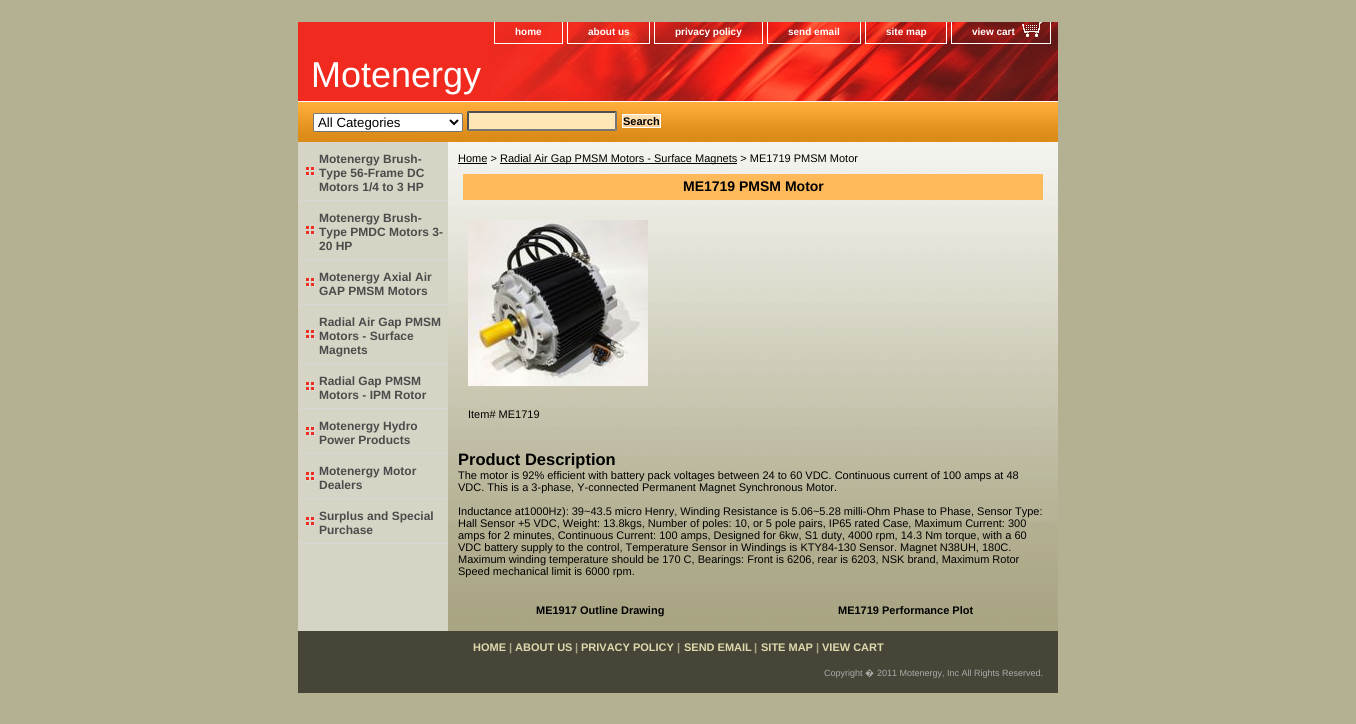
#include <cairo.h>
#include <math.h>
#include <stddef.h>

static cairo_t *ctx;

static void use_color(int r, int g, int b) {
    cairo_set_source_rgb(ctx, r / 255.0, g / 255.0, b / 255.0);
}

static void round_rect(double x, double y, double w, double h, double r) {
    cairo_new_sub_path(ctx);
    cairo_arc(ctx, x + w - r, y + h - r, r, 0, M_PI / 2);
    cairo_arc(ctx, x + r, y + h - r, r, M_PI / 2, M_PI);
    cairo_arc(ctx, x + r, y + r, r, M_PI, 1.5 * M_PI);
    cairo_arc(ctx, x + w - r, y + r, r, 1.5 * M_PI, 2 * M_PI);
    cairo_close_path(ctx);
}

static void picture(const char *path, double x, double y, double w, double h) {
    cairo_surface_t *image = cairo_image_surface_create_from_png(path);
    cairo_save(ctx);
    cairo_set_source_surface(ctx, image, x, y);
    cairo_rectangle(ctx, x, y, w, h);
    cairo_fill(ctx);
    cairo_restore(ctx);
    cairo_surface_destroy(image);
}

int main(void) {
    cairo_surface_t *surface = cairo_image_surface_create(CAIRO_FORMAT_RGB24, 1356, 724);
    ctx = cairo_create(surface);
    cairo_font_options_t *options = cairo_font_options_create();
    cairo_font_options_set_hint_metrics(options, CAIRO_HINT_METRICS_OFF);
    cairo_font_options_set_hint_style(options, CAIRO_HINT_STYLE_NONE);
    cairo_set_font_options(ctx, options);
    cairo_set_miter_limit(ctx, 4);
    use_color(180, 176, 146);
    cairo_paint(ctx);
    use_color(241, 42, 31);
    cairo_rectangle(ctx, 298, 22, 192, 79);
    cairo_fill(ctx);
    picture("img1.png", 490, 22, 568, 79);
    use_color(255, 255, 255);
    cairo_rectangle(ctx, 562, 22, 1, 22);
    cairo_fill(ctx);
    cairo_rectangle(ctx, 494, 43, 69, 1);
    cairo_fill(ctx);
    cairo_rectangle(ctx, 494, 22, 1, 22);
    cairo_fill(ctx);
    cairo_select_font_face(ctx, "Liberation Sans", CAIRO_FONT_SLANT_NORMAL, CAIRO_FONT_WEIGHT_BOLD);
    cairo_set_font_size(ctx, 10);
    cairo_move_to(ctx, 515, 35);
    cairo_show_text(ctx, "home");
    cairo_rectangle(ctx, 649, 22, 1, 22);
    cairo_fill(ctx);
    cairo_rectangle(ctx, 567, 43, 83, 1);
    cairo_fill(ctx);
    cairo_rectangle(ctx, 567, 22, 1, 22);
    cairo_fill(ctx);
    cairo_move_to(ctx, 588, 35);
    cairo_show_text(ctx, "about us");
    cairo_rectangle(ctx, 762, 22, 1, 22);
    cairo_fill(ctx);
    cairo_rectangle(ctx, 654, 43, 109, 1);
    cairo_fill(ctx);
    cairo_rectangle(ctx, 654, 22, 1, 22);
    cairo_fill(ctx);
    cairo_move_to(ctx, 675, 35);
    cairo_show_text(ctx, "privacy policy");
    cairo_rectangle(ctx, 860, 22, 1, 22);
    cairo_fill(ctx);
    cairo_rectangle(ctx, 767, 43, 94, 1);
    cairo_fill(ctx);
    cairo_rectangle(ctx, 767, 22, 1, 22);
    cairo_fill(ctx);
    cairo_move_to(ctx, 788, 35);
    cairo_show_text(ctx, "send email");
    cairo_rectangle(ctx, 946, 22, 1, 22);
    cairo_fill(ctx);
    cairo_rectangle(ctx, 865, 43, 82, 1);
    cairo_fill(ctx);
    cairo_rectangle(ctx, 865, 22, 1, 22);
    cairo_fill(ctx);
    cairo_move_to(ctx, 886, 35);
    cairo_show_text(ctx, "site map");
    cairo_rectangle(ctx, 1050, 22, 1, 22);
    cairo_fill(ctx);
    cairo_rectangle(ctx, 951, 43, 100, 1);
    cairo_fill(ctx);
    cairo_rectangle(ctx, 951, 22, 1, 22);
    cairo_fill(ctx);
    picture("img2.png", 1022, 22, 20, 15);
    cairo_move_to(ctx, 972, 35);
    cairo_show_text(ctx, "view cart");
    cairo_select_font_face(ctx, "Liberation Sans", CAIRO_FONT_SLANT_NORMAL, CAIRO_FONT_WEIGHT_NORMAL);
    cairo_set_font_size(ctx, 36);
    cairo_move_to(ctx, 311, 87);
    cairo_show_text(ctx, "Motenergy");
    picture("img3.png", 298, 101, 760, 41);
    round_rect(313.5, 113.5, 149, 18, 1.5);
    cairo_fill_preserve(ctx);
    use_color(118, 118, 118);
    cairo_set_line_width(ctx, 1);
    cairo_stroke(ctx);
    cairo_new_path(ctx);
    cairo_move_to(ctx, 450, 120);
    cairo_line_to(ctx, 454, 124);
    cairo_line_to(ctx, 458, 120);
    use_color(0, 0, 0);
    cairo_set_line_width(ctx, 2);
    cairo_stroke(ctx);
    cairo_set_font_size(ctx, 13.25);
    cairo_move_to(ctx, 318, 127);
    cairo_show_text(ctx, "All Categories");
    use_color(255, 231, 181);
    cairo_rectangle(ctx, 467, 111, 150, 20);
    cairo_fill(ctx);
    use_color(79, 79, 79);
    cairo_new_path(ctx);
    cairo_move_to(ctx, 467, 111);
    cairo_line_to(ctx, 617, 111);
    cairo_line_to(ctx, 615, 113);
    cairo_line_to(ctx, 469, 113);
    cairo_close_path(ctx);
    cairo_fill(ctx);
    use_color(118, 118, 118);
    cairo_new_path(ctx);
    cairo_move_to(ctx, 617, 111);
    cairo_line_to(ctx, 617, 131);
    cairo_line_to(ctx, 615, 129);
    cairo_line_to(ctx, 615, 113);
    cairo_close_path(ctx);
    cairo_fill(ctx);
    cairo_new_path(ctx);
    cairo_move_to(ctx, 617, 131);
    cairo_line_to(ctx, 467, 131);
    cairo_line_to(ctx, 469, 129);
    cairo_line_to(ctx, 615, 129);
    cairo_close_path(ctx);
    cairo_fill(ctx);
    use_color(79, 79, 79);
    cairo_new_path(ctx);
    cairo_move_to(ctx, 467, 131);
    cairo_line_to(ctx, 467, 111);
    cairo_line_to(ctx, 469, 113);
    cairo_line_to(ctx, 469, 129);
    cairo_close_path(ctx);
    cairo_fill(ctx);
    picture("img4.png", 623, 115, 37, 12);
    cairo_rectangle(ctx, 622.5, 114.5, 38, 13);
    use_color(255, 255, 255);
    cairo_set_line_width(ctx, 1);
    cairo_stroke(ctx);
    cairo_select_font_face(ctx, "Liberation Sans", CAIRO_FONT_SLANT_NORMAL, CAIRO_FONT_WEIGHT_BOLD);
    cairo_set_font_size(ctx, 11);
    use_color(0, 0, 0);
    cairo_move_to(ctx, 623, 125);
    cairo_show_text(ctx, "Search");
    picture("img5.png", 448, 142, 610, 489);
    use_color(214, 213, 197);
    cairo_rectangle(ctx, 298, 142, 150, 489);
    cairo_fill(ctx);
    picture("img6.png", 306, 167, 9, 9);
    use_color(216, 215, 213);
    cairo_rectangle(ctx, 298, 200, 150, 1);
    cairo_fill(ctx);
    cairo_set_font_size(ctx, 12);
    use_color(75, 75, 75);
    cairo_move_to(ctx, 319, 163);
    cairo_show_text(ctx, "Motenergy Brush-");
    cairo_move_to(ctx, 319, 177);
    cairo_show_text(ctx, "Type 56-Frame DC");
    cairo_move_to(ctx, 319, 191);
    cairo_show_text(ctx, "Motors 1/4 to 3 HP");
    picture("img6.png", 306, 226, 9, 9);
    use_color(216, 215, 213);
    cairo_rectangle(ctx, 298, 259, 150, 1);
    cairo_fill(ctx);
    use_color(75, 75, 75);
    cairo_move_to(ctx, 319, 222);
    cairo_show_text(ctx, "Motenergy Brush-");
    cairo_move_to(ctx, 319, 236);
    cairo_show_text(ctx, "Type PMDC Motors 3-");
    cairo_move_to(ctx, 319, 250);
    cairo_show_text(ctx, "20 HP");
    picture("img6.png", 306, 278, 9, 9);
    use_color(216, 215, 213);
    cairo_rectangle(ctx, 298, 304, 150, 1);
    cairo_fill(ctx);
    use_color(75, 75, 75);
    cairo_move_to(ctx, 319, 281);
    cairo_show_text(ctx, "Motenergy Axial Air");
    cairo_move_to(ctx, 319, 295);
    cairo_show_text(ctx, "GAP PMSM Motors");
    picture("img6.png", 306, 330, 9, 9);
    use_color(216, 215, 213);
    cairo_rectangle(ctx, 298, 363, 150, 1);
    cairo_fill(ctx);
    use_color(75, 75, 75);
    cairo_move_to(ctx, 319, 326);
    cairo_show_text(ctx, "Radial Air Gap PMSM");
    cairo_move_to(ctx, 319, 340);
    cairo_show_text(ctx, "Motors - Surface");
    cairo_move_to(ctx, 319, 354);
    cairo_show_text(ctx, "Magnets");
    picture("img6.png", 306, 382, 9, 9);
    use_color(216, 215, 213);
    cairo_rectangle(ctx, 298, 408, 150, 1);
    cairo_fill(ctx);
    use_color(75, 75, 75);
    cairo_move_to(ctx, 319, 385);
    cairo_show_text(ctx, "Radial Gap PMSM");
    cairo_move_to(ctx, 319, 399);
    cairo_show_text(ctx, "Motors - IPM Rotor");
    picture("img6.png", 306, 427, 9, 9);
    use_color(216, 215, 213);
    cairo_rectangle(ctx, 298, 453, 150, 1);
    cairo_fill(ctx);
    use_color(75, 75, 75);
    cairo_move_to(ctx, 319, 430);
    cairo_show_text(ctx, "Motenergy Hydro");
    cairo_move_to(ctx, 319, 444);
    cairo_show_text(ctx, "Power Products");
    picture("img6.png", 306, 472, 9, 9);
    use_color(216, 215, 213);
    cairo_rectangle(ctx, 298, 498, 150, 1);
    cairo_fill(ctx);
    use_color(75, 75, 75);
    cairo_move_to(ctx, 319, 475);
    cairo_show_text(ctx, "Motenergy Motor");
    cairo_move_to(ctx, 319, 489);
    cairo_show_text(ctx, "Dealers");
    picture("img6.png", 306, 517, 9, 9);
    use_color(216, 215, 213);
    cairo_rectangle(ctx, 298, 543, 150, 1);
    cairo_fill(ctx);
    use_color(75, 75, 75);
    cairo_move_to(ctx, 319, 520);
    cairo_show_text(ctx, "Surplus and Special");
    cairo_move_to(ctx, 319, 534);
    cairo_show_text(ctx, "Purchase");
    cairo_select_font_face(ctx, "Liberation Sans", CAIRO_FONT_SLANT_NORMAL, CAIRO_FONT_WEIGHT_NORMAL);
    cairo_set_font_size(ctx, 11);
    use_color(0, 0, 0);
    cairo_move_to(ctx, 458, 162);
    cairo_show_text(ctx, "Home >");
    cairo_rectangle(ctx, 458, 163, 29, 1);
    cairo_fill(ctx);
    cairo_rectangle(ctx, 500, 163, 237, 1);
    cairo_fill(ctx);
    cairo_move_to(ctx, 500, 162);
    cairo_show_text(ctx, "Radial Air Gap PMSM Motors - Surface Magnets > ME1719 PMSM Motor");
    use_color(254, 186, 90);
    cairo_rectangle(ctx, 463, 174, 580, 26);
    cairo_fill(ctx);
    cairo_select_font_face(ctx, "Liberation Sans", CAIRO_FONT_SLANT_NORMAL, CAIRO_FONT_WEIGHT_BOLD);
    cairo_set_font_size(ctx, 14);
    use_color(0, 0, 0);
    cairo_move_to(ctx, 683, 191);
    cairo_show_text(ctx, "ME1719 PMSM Motor");
    picture("img7.png", 468, 220, 180, 166);
    cairo_select_font_face(ctx, "Liberation Sans", CAIRO_FONT_SLANT_NORMAL, CAIRO_FONT_WEIGHT_NORMAL);
    cairo_set_font_size(ctx, 11);
    cairo_move_to(ctx, 468, 418);
    cairo_show_text(ctx, "Item# ME1719");
    cairo_select_font_face(ctx, "Liberation Sans", CAIRO_FONT_SLANT_NORMAL, CAIRO_FONT_WEIGHT_BOLD);
    cairo_set_font_size(ctx, 16.5);
    cairo_move_to(ctx, 458, 465);
    cairo_show_text(ctx, "Product Description");
    cairo_select_font_face(ctx, "Liberation Sans", CAIRO_FONT_SLANT_NORMAL, CAIRO_FONT_WEIGHT_NORMAL);
    cairo_set_font_size(ctx, 11);
    cairo_move_to(ctx, 458, 479);
    cairo_show_text(ctx, "The motor is 92% efficient with battery pack voltages between 24 to 60 VDC. Continuous current of 100 amps at 48");
    cairo_move_to(ctx, 458, 491);
    cairo_show_text(ctx, "VDC. This is a 3-phase, Y-connected Permanent Magnet Synchronous Motor.");
    cairo_move_to(ctx, 458, 515);
    cairo_show_text(ctx, "Inductance at1000Hz): 39~43.5 micro Henry, Winding Resistance is 5.06~5.28 milli-Ohm Phase to Phase, Sensor Type:");
    cairo_move_to(ctx, 458, 527);
    cairo_show_text(ctx, "Hall Sensor +5 VDC, Weight: 13.8kgs, Number of poles: 10, or 5 pole pairs, IP65 rated Case, Maximum Current: 300");
    cairo_move_to(ctx, 458, 539);
    cairo_show_text(ctx, "amps for 2 minutes, Continuous Current: 100 amps, Designed for 6kw, S1 duty, 4000 rpm, 14.3 Nm torque, with a 60");
    cairo_move_to(ctx, 458, 551);
    cairo_show_text(ctx, "VDC battery supply to the control, Temperature Sensor in Windings is KTY84-130 Sensor. Magnet N38UH, 180C.");
    cairo_move_to(ctx, 458, 563);
    cairo_show_text(ctx, "Maximum winding temperature should be 170 C, Bearings: Front is 6206, rear is 6203, NSK brand, Maximum Rotor");
    cairo_move_to(ctx, 458, 575);
    cairo_show_text(ctx, "Speed mechanical limit is 6000 rpm.");
    cairo_select_font_face(ctx, "Liberation Sans", CAIRO_FONT_SLANT_NORMAL, CAIRO_FONT_WEIGHT_BOLD);
    cairo_move_to(ctx, 536, 614);
    cairo_show_text(ctx, "ME1917 Outline Drawing");
    cairo_move_to(ctx, 838, 614);
    cairo_show_text(ctx, "ME1719 Performance Plot");
    use_color(71, 69, 55);
    cairo_rectangle(ctx, 298, 631, 760, 62);
    cairo_fill(ctx);
    use_color(222, 217, 173);
    cairo_move_to(ctx, 473, 651);
    cairo_show_text(ctx, "HOME");
    use_color(171, 167, 134);
    cairo_move_to(ctx, 509, 651);
    cairo_show_text(ctx, "|");
    use_color(222, 217, 173);
    cairo_move_to(ctx, 515, 651);
    cairo_show_text(ctx, "ABOUT US");
    use_color(171, 167, 134);
    cairo_move_to(ctx, 575, 651);
    cairo_show_text(ctx, "|");
    use_color(222, 217, 173);
    cairo_move_to(ctx, 581, 651);
    cairo_show_text(ctx, "PRIVACY POLICY");
    use_color(171, 167, 134);
    cairo_move_to(ctx, 677, 651);
    cairo_show_text(ctx, "|");
    use_color(222, 217, 173);
    cairo_move_to(ctx, 684, 651);
    cairo_show_text(ctx, "SEND EMAIL");
    use_color(171, 167, 134);
    cairo_move_to(ctx, 754, 651);
    cairo_show_text(ctx, "|");
    use_color(222, 217, 173);
    cairo_move_to(ctx, 761, 651);
    cairo_show_text(ctx, "SITE MAP");
    use_color(171, 167, 134);
    cairo_move_to(ctx, 816, 651);
    cairo_show_text(ctx, "|");
    use_color(222, 217, 173);
    cairo_move_to(ctx, 822, 651);
    cairo_show_text(ctx, "VIEW CART");
    cairo_select_font_face(ctx, "Liberation Sans", CAIRO_FONT_SLANT_NORMAL, CAIRO_FONT_WEIGHT_NORMAL);
    cairo_set_font_size(ctx, 9);
    use_color(170, 170, 170);
    cairo_move_to(ctx, 824, 676);
    cairo_show_text(ctx, "Copyright");
    cairo_select_font_face(ctx, "Noto Sans", CAIRO_FONT_SLANT_NORMAL, CAIRO_FONT_WEIGHT_NORMAL);
    cairo_move_to(ctx, 865, 676);
    cairo_show_text(ctx, "�");
    cairo_select_font_face(ctx, "Liberation Sans", CAIRO_FONT_SLANT_NORMAL, CAIRO_FONT_WEIGHT_NORMAL);
    cairo_move_to(ctx, 877, 676);
    cairo_show_text(ctx, "2011 Motenergy, Inc All Rights Reserved.");
    cairo_surface_write_to_png(surface, "result.png");
    cairo_font_options_destroy(options);
    cairo_destroy(ctx);
    cairo_surface_destroy(surface);
    return 0;
}
